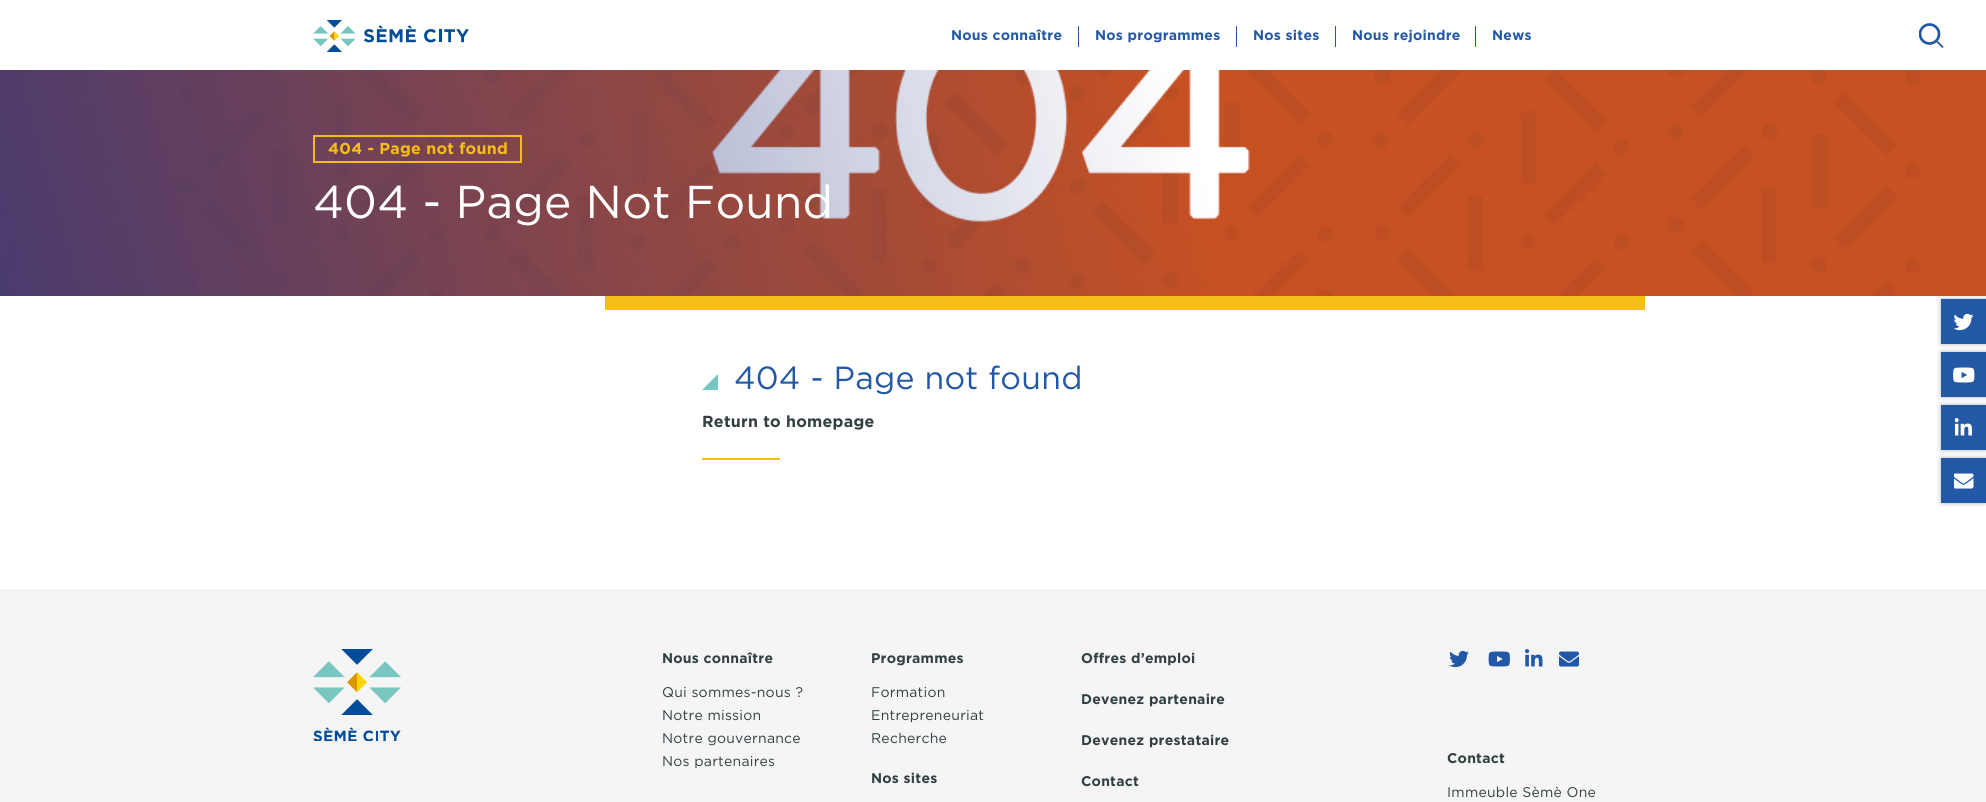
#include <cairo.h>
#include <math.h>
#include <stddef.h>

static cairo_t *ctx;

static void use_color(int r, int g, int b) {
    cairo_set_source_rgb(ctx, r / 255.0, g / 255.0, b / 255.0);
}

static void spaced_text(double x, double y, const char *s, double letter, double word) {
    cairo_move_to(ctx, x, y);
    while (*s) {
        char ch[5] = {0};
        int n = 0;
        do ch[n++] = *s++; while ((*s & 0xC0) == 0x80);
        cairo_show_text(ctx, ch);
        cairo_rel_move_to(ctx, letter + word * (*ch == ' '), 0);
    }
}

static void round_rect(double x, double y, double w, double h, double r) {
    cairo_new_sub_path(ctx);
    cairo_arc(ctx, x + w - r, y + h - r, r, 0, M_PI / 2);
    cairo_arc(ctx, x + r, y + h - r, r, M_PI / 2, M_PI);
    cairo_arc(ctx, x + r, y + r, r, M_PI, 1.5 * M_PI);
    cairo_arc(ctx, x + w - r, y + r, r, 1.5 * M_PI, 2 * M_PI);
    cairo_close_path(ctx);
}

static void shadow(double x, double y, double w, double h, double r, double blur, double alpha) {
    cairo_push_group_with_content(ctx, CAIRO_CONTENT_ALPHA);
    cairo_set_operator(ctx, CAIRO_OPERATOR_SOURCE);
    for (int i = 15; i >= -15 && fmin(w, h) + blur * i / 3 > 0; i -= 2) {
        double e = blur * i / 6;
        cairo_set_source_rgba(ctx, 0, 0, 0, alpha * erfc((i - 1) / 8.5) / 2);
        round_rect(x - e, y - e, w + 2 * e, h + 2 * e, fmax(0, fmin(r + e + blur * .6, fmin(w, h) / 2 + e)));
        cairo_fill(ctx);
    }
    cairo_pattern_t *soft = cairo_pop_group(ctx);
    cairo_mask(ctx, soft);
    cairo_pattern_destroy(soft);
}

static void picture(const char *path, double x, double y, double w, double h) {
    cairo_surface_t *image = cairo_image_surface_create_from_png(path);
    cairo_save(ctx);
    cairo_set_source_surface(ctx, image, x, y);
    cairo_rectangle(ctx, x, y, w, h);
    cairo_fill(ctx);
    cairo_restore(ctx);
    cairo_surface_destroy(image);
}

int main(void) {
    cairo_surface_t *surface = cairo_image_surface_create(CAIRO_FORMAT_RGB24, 1986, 802);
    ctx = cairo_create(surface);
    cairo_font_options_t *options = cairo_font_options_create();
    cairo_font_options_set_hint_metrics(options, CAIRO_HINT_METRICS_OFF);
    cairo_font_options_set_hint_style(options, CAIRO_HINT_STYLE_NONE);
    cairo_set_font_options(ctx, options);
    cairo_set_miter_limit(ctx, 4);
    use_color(255, 255, 255);
    cairo_paint(ctx);
    picture("img1.png", 313, 20, 156, 32);
    cairo_select_font_face(ctx, "Gotham", CAIRO_FONT_SLANT_NORMAL, CAIRO_FONT_WEIGHT_BOLD);
    cairo_set_font_size(ctx, 14);
    use_color(34, 88, 166);
    spaced_text(951, 40, "Nous connaître", 0.25, 0);
    cairo_rectangle(ctx, 1078, 26, 1, 21);
    cairo_fill(ctx);
    spaced_text(1095, 40, "Nos programmes", 0.25, 0);
    cairo_rectangle(ctx, 1236, 26, 1, 21);
    cairo_fill(ctx);
    spaced_text(1253, 40, "Nos sites", 0.25, 0);
    cairo_rectangle(ctx, 1335, 26, 1, 21);
    cairo_fill(ctx);
    spaced_text(1352, 40, "Nous rejoindre", 0.25, 0);
    cairo_rectangle(ctx, 1475, 26, 1, 21);
    cairo_fill(ctx);
    spaced_text(1492, 40, "News", 0.25, 0);
    cairo_save(ctx);
    cairo_rectangle(ctx, 1919, 23, 25, 25);
    cairo_clip(ctx);
    cairo_arc(ctx, 1929.5, 34, 9.5, 0, 2 * M_PI);
    cairo_set_line_width(ctx, 2.7);
    cairo_stroke(ctx);
    cairo_restore(ctx);
    cairo_new_path(ctx);
    cairo_move_to(ctx, 1937, 41.5);
    cairo_line_to(ctx, 1943, 47.5);
    cairo_set_line_width(ctx, 1.8);
    cairo_stroke(ctx);
    picture("img2.png", 0, 70, 1986, 226);
    cairo_rectangle(ctx, 314, 136, 207, 26);
    use_color(244, 189, 25);
    cairo_set_line_width(ctx, 2);
    cairo_stroke(ctx);
    cairo_set_font_size(ctx, 16);
    spaced_text(328, 154, "404 - Page not found", 0.25, 0);
    cairo_select_font_face(ctx, "Gotham", CAIRO_FONT_SLANT_NORMAL, CAIRO_FONT_WEIGHT_NORMAL);
    cairo_set_font_size(ctx, 46);
    use_color(255, 255, 255);
    spaced_text(313, 218, "404 - Page Not Found", 0.25, 0);
    use_color(244, 189, 25);
    cairo_rectangle(ctx, 605, 296, 1040, 14);
    cairo_fill(ctx);
    use_color(121, 198, 192);
    cairo_new_path(ctx);
    cairo_move_to(ctx, 718, 374);
    cairo_line_to(ctx, 702, 390);
    cairo_line_to(ctx, 718, 390);
    cairo_close_path(ctx);
    cairo_fill(ctx);
    cairo_set_font_size(ctx, 32);
    use_color(34, 88, 166);
    spaced_text(734, 389, "404 - Page not found", 0.25, 0);
    cairo_select_font_face(ctx, "Gotham", CAIRO_FONT_SLANT_NORMAL, CAIRO_FONT_WEIGHT_BOLD);
    cairo_set_font_size(ctx, 16);
    use_color(49, 63, 65);
    spaced_text(702, 427, "Return to homepage", 0.25, 0);
    use_color(244, 189, 25);
    cairo_rectangle(ctx, 702, 458, 78, 2);
    cairo_fill(ctx);
    use_color(34, 88, 166);
    cairo_rectangle(ctx, 1941, 299, 45, 45);
    cairo_fill(ctx);
    cairo_rectangle(ctx, 1941, 352, 45, 45);
    cairo_fill(ctx);
    cairo_save(ctx);
    cairo_set_fill_rule(ctx, CAIRO_FILL_RULE_EVEN_ODD);
    cairo_new_path(ctx);
    cairo_move_to(ctx, 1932, 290);
    cairo_line_to(ctx, 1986, 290);
    cairo_line_to(ctx, 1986, 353);
    cairo_line_to(ctx, 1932, 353);
    cairo_close_path(ctx);
    cairo_move_to(ctx, 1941, 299);
    cairo_line_to(ctx, 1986, 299);
    cairo_line_to(ctx, 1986, 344);
    cairo_line_to(ctx, 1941, 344);
    cairo_close_path(ctx);
    cairo_clip(ctx);
    use_color(0, 0, 0);
    shadow(1941, 299, 45, 45, 0, 2.5, 0.3);
    cairo_restore(ctx);
    picture("img3.png", 1954, 313, 20, 18);
    cairo_rectangle(ctx, 1941, 405, 45, 45);
    cairo_fill(ctx);
    cairo_save(ctx);
    cairo_set_fill_rule(ctx, CAIRO_FILL_RULE_EVEN_ODD);
    cairo_new_path(ctx);
    cairo_move_to(ctx, 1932, 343);
    cairo_line_to(ctx, 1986, 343);
    cairo_line_to(ctx, 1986, 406);
    cairo_line_to(ctx, 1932, 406);
    cairo_close_path(ctx);
    cairo_move_to(ctx, 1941, 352);
    cairo_line_to(ctx, 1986, 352);
    cairo_line_to(ctx, 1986, 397);
    cairo_line_to(ctx, 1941, 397);
    cairo_close_path(ctx);
    cairo_clip(ctx);
    use_color(0, 0, 0);
    shadow(1941, 352, 45, 45, 0, 2.5, 0.3);
    cairo_restore(ctx);
    picture("img4.png", 1953, 367, 22, 16);
    cairo_rectangle(ctx, 1941, 458, 45, 45);
    cairo_fill(ctx);
    cairo_save(ctx);
    cairo_set_fill_rule(ctx, CAIRO_FILL_RULE_EVEN_ODD);
    cairo_new_path(ctx);
    cairo_move_to(ctx, 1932, 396);
    cairo_line_to(ctx, 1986, 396);
    cairo_line_to(ctx, 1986, 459);
    cairo_line_to(ctx, 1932, 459);
    cairo_close_path(ctx);
    cairo_move_to(ctx, 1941, 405);
    cairo_line_to(ctx, 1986, 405);
    cairo_line_to(ctx, 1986, 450);
    cairo_line_to(ctx, 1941, 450);
    cairo_close_path(ctx);
    cairo_clip(ctx);
    use_color(0, 0, 0);
    shadow(1941, 405, 45, 45, 0, 2.5, 0.3);
    cairo_restore(ctx);
    picture("img5.png", 1955, 418, 17, 18);
    cairo_save(ctx);
    cairo_set_fill_rule(ctx, CAIRO_FILL_RULE_EVEN_ODD);
    cairo_new_path(ctx);
    cairo_move_to(ctx, 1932, 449);
    cairo_line_to(ctx, 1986, 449);
    cairo_line_to(ctx, 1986, 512);
    cairo_line_to(ctx, 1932, 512);
    cairo_close_path(ctx);
    cairo_move_to(ctx, 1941, 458);
    cairo_line_to(ctx, 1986, 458);
    cairo_line_to(ctx, 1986, 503);
    cairo_line_to(ctx, 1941, 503);
    cairo_close_path(ctx);
    cairo_clip(ctx);
    use_color(0, 0, 0);
    shadow(1941, 458, 45, 45, 0, 2.5, 0.3);
    cairo_restore(ctx);
    picture("img6.png", 1954, 473, 20, 16);
    use_color(245, 245, 245);
    cairo_rectangle(ctx, 0, 589, 1986, 213);
    cairo_fill(ctx);
    picture("img7.png", 313, 649, 88, 92);
    cairo_set_font_size(ctx, 14);
    use_color(49, 63, 65);
    spaced_text(662, 663, "Nous connaître", 0.25, 0);
    cairo_select_font_face(ctx, "Gotham", CAIRO_FONT_SLANT_NORMAL, CAIRO_FONT_WEIGHT_NORMAL);
    spaced_text(662, 697, "Qui sommes-nous ?", 0.25, 0);
    spaced_text(662, 720, "Notre mission", 0.25, 0);
    spaced_text(662, 743, "Notre gouvernance", 0.25, 0);
    spaced_text(662, 766, "Nos partenaires", 0.25, 0);
    cairo_select_font_face(ctx, "Gotham", CAIRO_FONT_SLANT_NORMAL, CAIRO_FONT_WEIGHT_BOLD);
    spaced_text(871, 663, "Programmes", 0.25, 0);
    cairo_select_font_face(ctx, "Gotham", CAIRO_FONT_SLANT_NORMAL, CAIRO_FONT_WEIGHT_NORMAL);
    spaced_text(871, 697, "Formation", 0.25, 0);
    spaced_text(871, 720, "Entrepreneuriat", 0.25, 0);
    spaced_text(871, 743, "Recherche", 0.25, 0);
    cairo_select_font_face(ctx, "Gotham", CAIRO_FONT_SLANT_NORMAL, CAIRO_FONT_WEIGHT_BOLD);
    spaced_text(871, 783, "Nos sites", 0.25, 0);
    spaced_text(1081, 663, "Offres d’emploi", 0.25, 0);
    spaced_text(1081, 704, "Devenez partenaire", 0.25, 0);
    spaced_text(1081, 745, "Devenez prestataire", 0.25, 0);
    spaced_text(1081, 786, "Contact", 0.25, 0);
    picture("img8.png", 1449, 650, 20, 18);
    picture("img9.png", 1488, 651, 22, 16);
    picture("img10.png", 1525, 649, 18, 18);
    picture("img11.png", 1559, 651, 20, 16);
    spaced_text(1447, 763, "Contact", 0.25, 0);
    cairo_select_font_face(ctx, "Gotham", CAIRO_FONT_SLANT_NORMAL, CAIRO_FONT_WEIGHT_NORMAL);
    spaced_text(1447, 797, "Immeuble Sèmè One", 0.25, 0);
    cairo_surface_write_to_png(surface, "result.png");
    cairo_font_options_destroy(options);
    cairo_destroy(ctx);
    cairo_surface_destroy(surface);
    return 0;
}
